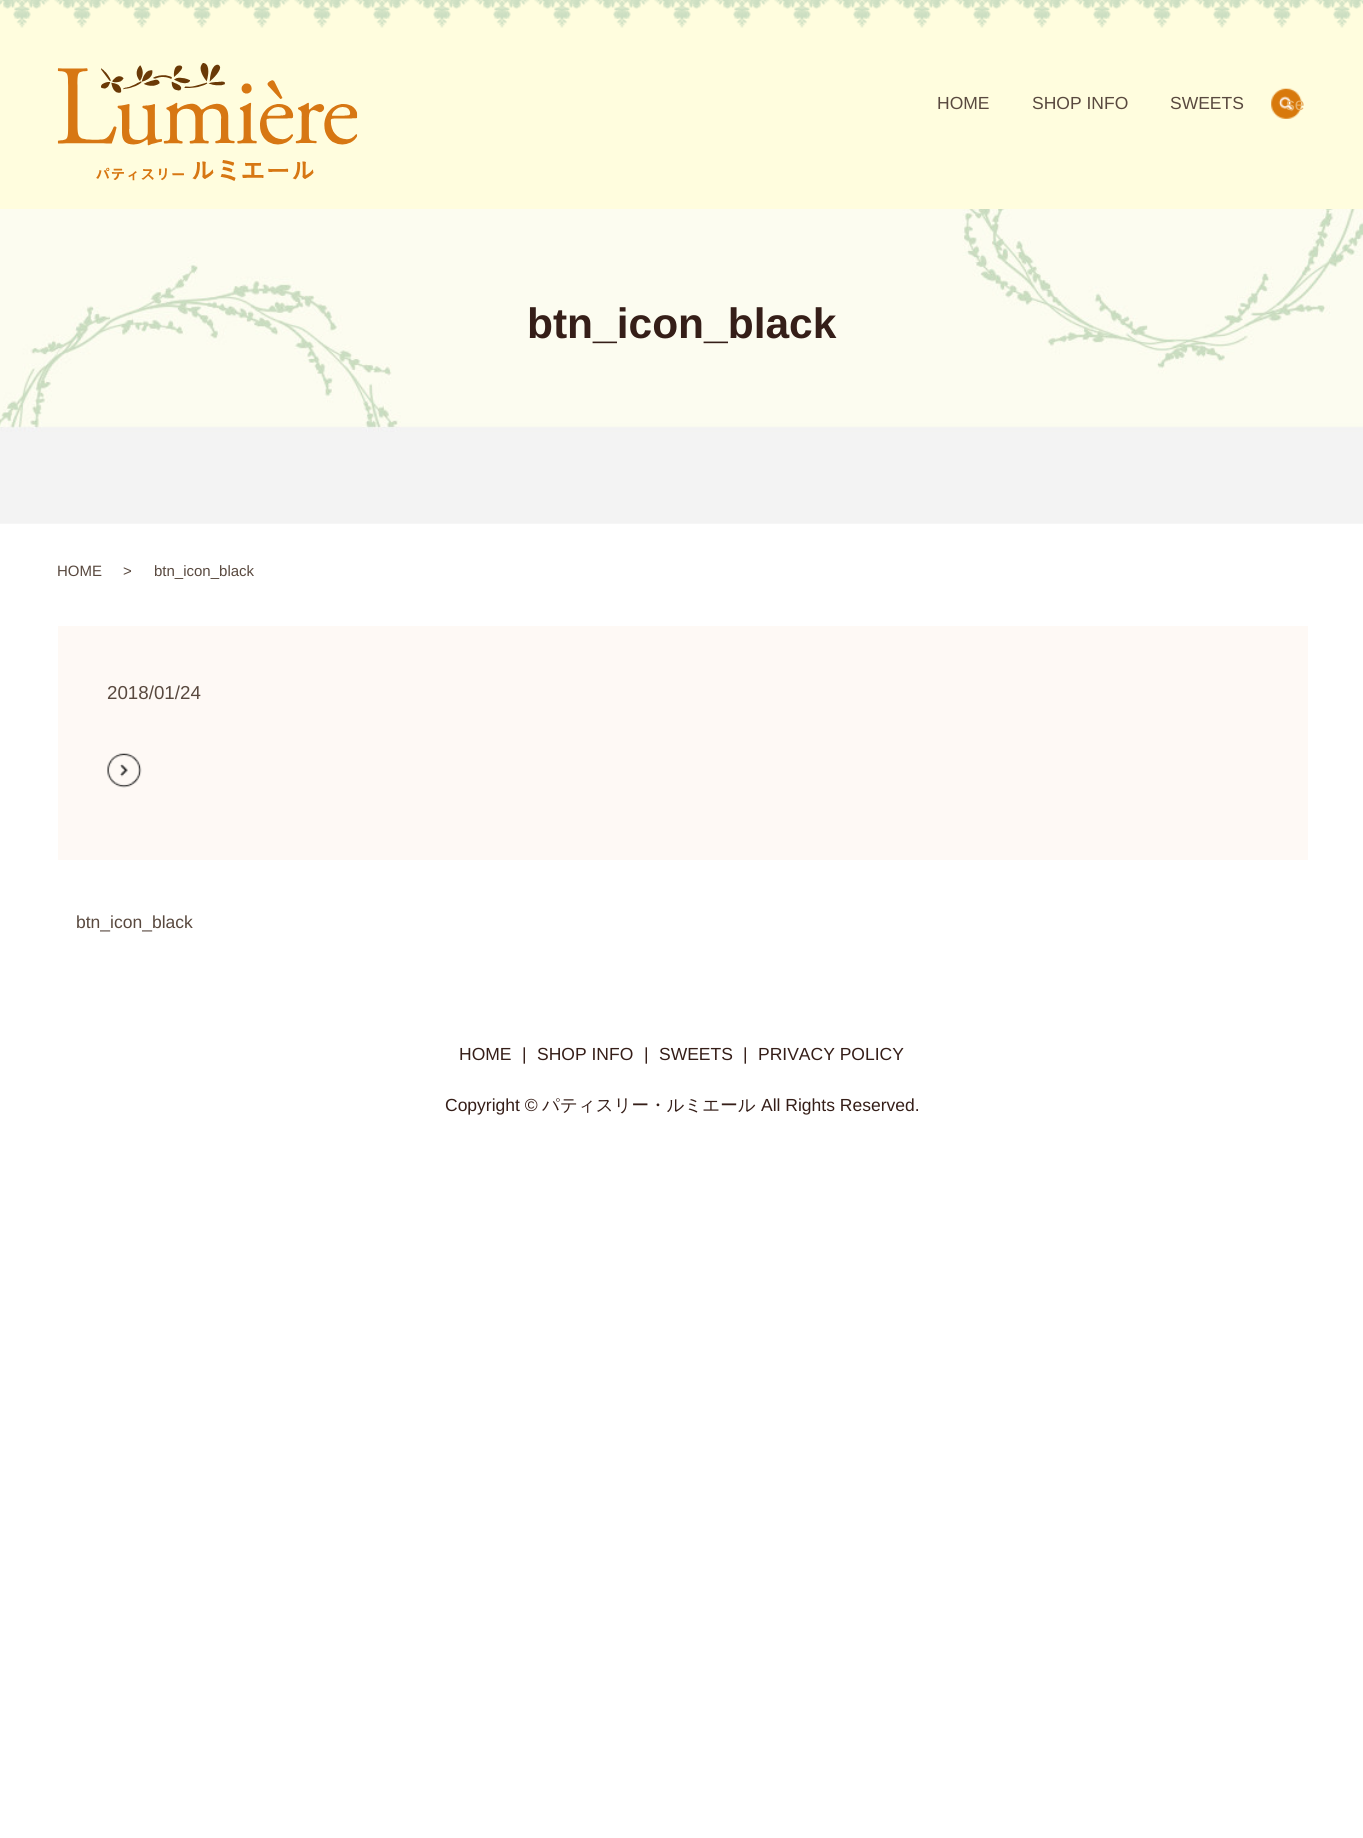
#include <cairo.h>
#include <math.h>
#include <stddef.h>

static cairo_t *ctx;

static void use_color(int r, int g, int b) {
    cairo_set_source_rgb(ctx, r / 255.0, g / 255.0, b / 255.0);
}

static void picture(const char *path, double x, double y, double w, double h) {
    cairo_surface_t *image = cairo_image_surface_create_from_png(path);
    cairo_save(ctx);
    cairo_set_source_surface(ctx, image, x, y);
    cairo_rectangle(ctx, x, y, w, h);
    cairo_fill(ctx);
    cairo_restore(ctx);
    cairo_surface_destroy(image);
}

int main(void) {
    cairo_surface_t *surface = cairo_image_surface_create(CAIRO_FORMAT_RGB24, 1363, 1838);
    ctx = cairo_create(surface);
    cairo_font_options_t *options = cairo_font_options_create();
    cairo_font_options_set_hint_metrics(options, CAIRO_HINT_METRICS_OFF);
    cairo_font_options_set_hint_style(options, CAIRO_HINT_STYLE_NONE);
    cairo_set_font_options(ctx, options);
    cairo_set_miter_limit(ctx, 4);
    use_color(255, 255, 255);
    cairo_paint(ctx);
    use_color(255, 253, 222);
    cairo_rectangle(ctx, 0, 0, 1363, 209);
    cairo_fill(ctx);
    picture("img1.png", 0, 0, 1363, 28);
    picture("img2.png", 57, 63, 301, 118);
    cairo_select_font_face(ctx, "Liberation Sans", CAIRO_FONT_SLANT_NORMAL, CAIRO_FONT_WEIGHT_NORMAL);
    cairo_set_font_size(ctx, 17.5);
    use_color(89, 73, 63);
    cairo_move_to(ctx, 937, 109);
    cairo_show_text(ctx, "HOME");
    cairo_move_to(ctx, 1032, 109);
    cairo_show_text(ctx, "SHOP INFO");
    cairo_move_to(ctx, 1170, 109);
    cairo_show_text(ctx, "SWEETS");
    picture("img3.png", 1271, 88, 31, 31);
    use_color(233, 179, 107);
    cairo_move_to(ctx, 1286, 110);
    cairo_show_text(ctx, "se");
    picture("img4.png", 0, 209, 1363, 315);
    cairo_select_font_face(ctx, "Liberation Sans", CAIRO_FONT_SLANT_NORMAL, CAIRO_FONT_WEIGHT_BOLD);
    cairo_set_font_size(ctx, 42.5);
    use_color(53, 30, 24);
    cairo_move_to(ctx, 527, 338);
    cairo_show_text(ctx, "btn_icon_black");
    cairo_select_font_face(ctx, "Liberation Sans", CAIRO_FONT_SLANT_NORMAL, CAIRO_FONT_WEIGHT_NORMAL);
    cairo_set_font_size(ctx, 15);
    use_color(89, 73, 63);
    cairo_move_to(ctx, 57, 576);
    cairo_show_text(ctx, "HOME");
    cairo_move_to(ctx, 123, 576);
    cairo_show_text(ctx, ">");
    cairo_move_to(ctx, 154, 576);
    cairo_show_text(ctx, "btn_icon_black");
    use_color(254, 249, 245);
    cairo_rectangle(ctx, 58, 626, 1250, 234);
    cairo_fill(ctx);
    cairo_set_font_size(ctx, 18.75);
    use_color(89, 73, 63);
    cairo_move_to(ctx, 107, 699);
    cairo_show_text(ctx, "2018/01/24");
    picture("img5.png", 107, 753, 35, 35);
    cairo_set_font_size(ctx, 17.5);
    cairo_move_to(ctx, 76, 928);
    cairo_show_text(ctx, "btn_icon_black");
    use_color(53, 30, 24);
    cairo_move_to(ctx, 459, 1060);
    cairo_show_text(ctx, "HOME");
    cairo_move_to(ctx, 522, 1060);
    cairo_show_text(ctx, "|");
    cairo_move_to(ctx, 537, 1060);
    cairo_show_text(ctx, "SHOP INFO");
    cairo_move_to(ctx, 644, 1060);
    cairo_show_text(ctx, "|");
    cairo_move_to(ctx, 659, 1060);
    cairo_show_text(ctx, "SWEETS");
    cairo_move_to(ctx, 743, 1060);
    cairo_show_text(ctx, "|");
    cairo_move_to(ctx, 758, 1060);
    cairo_show_text(ctx, "PRIVACY POLICY");
    cairo_move_to(ctx, 445, 1111);
    cairo_show_text(ctx, "Copyright ©");
    cairo_select_font_face(ctx, "WenQuanYi Zen Hei Medium", CAIRO_FONT_SLANT_NORMAL, CAIRO_FONT_WEIGHT_NORMAL);
    cairo_move_to(ctx, 542, 1111);
    cairo_show_text(ctx, "パティスリー・ルミエール");
    cairo_select_font_face(ctx, "Liberation Sans", CAIRO_FONT_SLANT_NORMAL, CAIRO_FONT_WEIGHT_NORMAL);
    cairo_move_to(ctx, 761, 1111);
    cairo_show_text(ctx, "All Rights Reserved.");
    cairo_surface_write_to_png(surface, "result.png");
    cairo_font_options_destroy(options);
    cairo_destroy(ctx);
    cairo_surface_destroy(surface);
    return 0;
}
